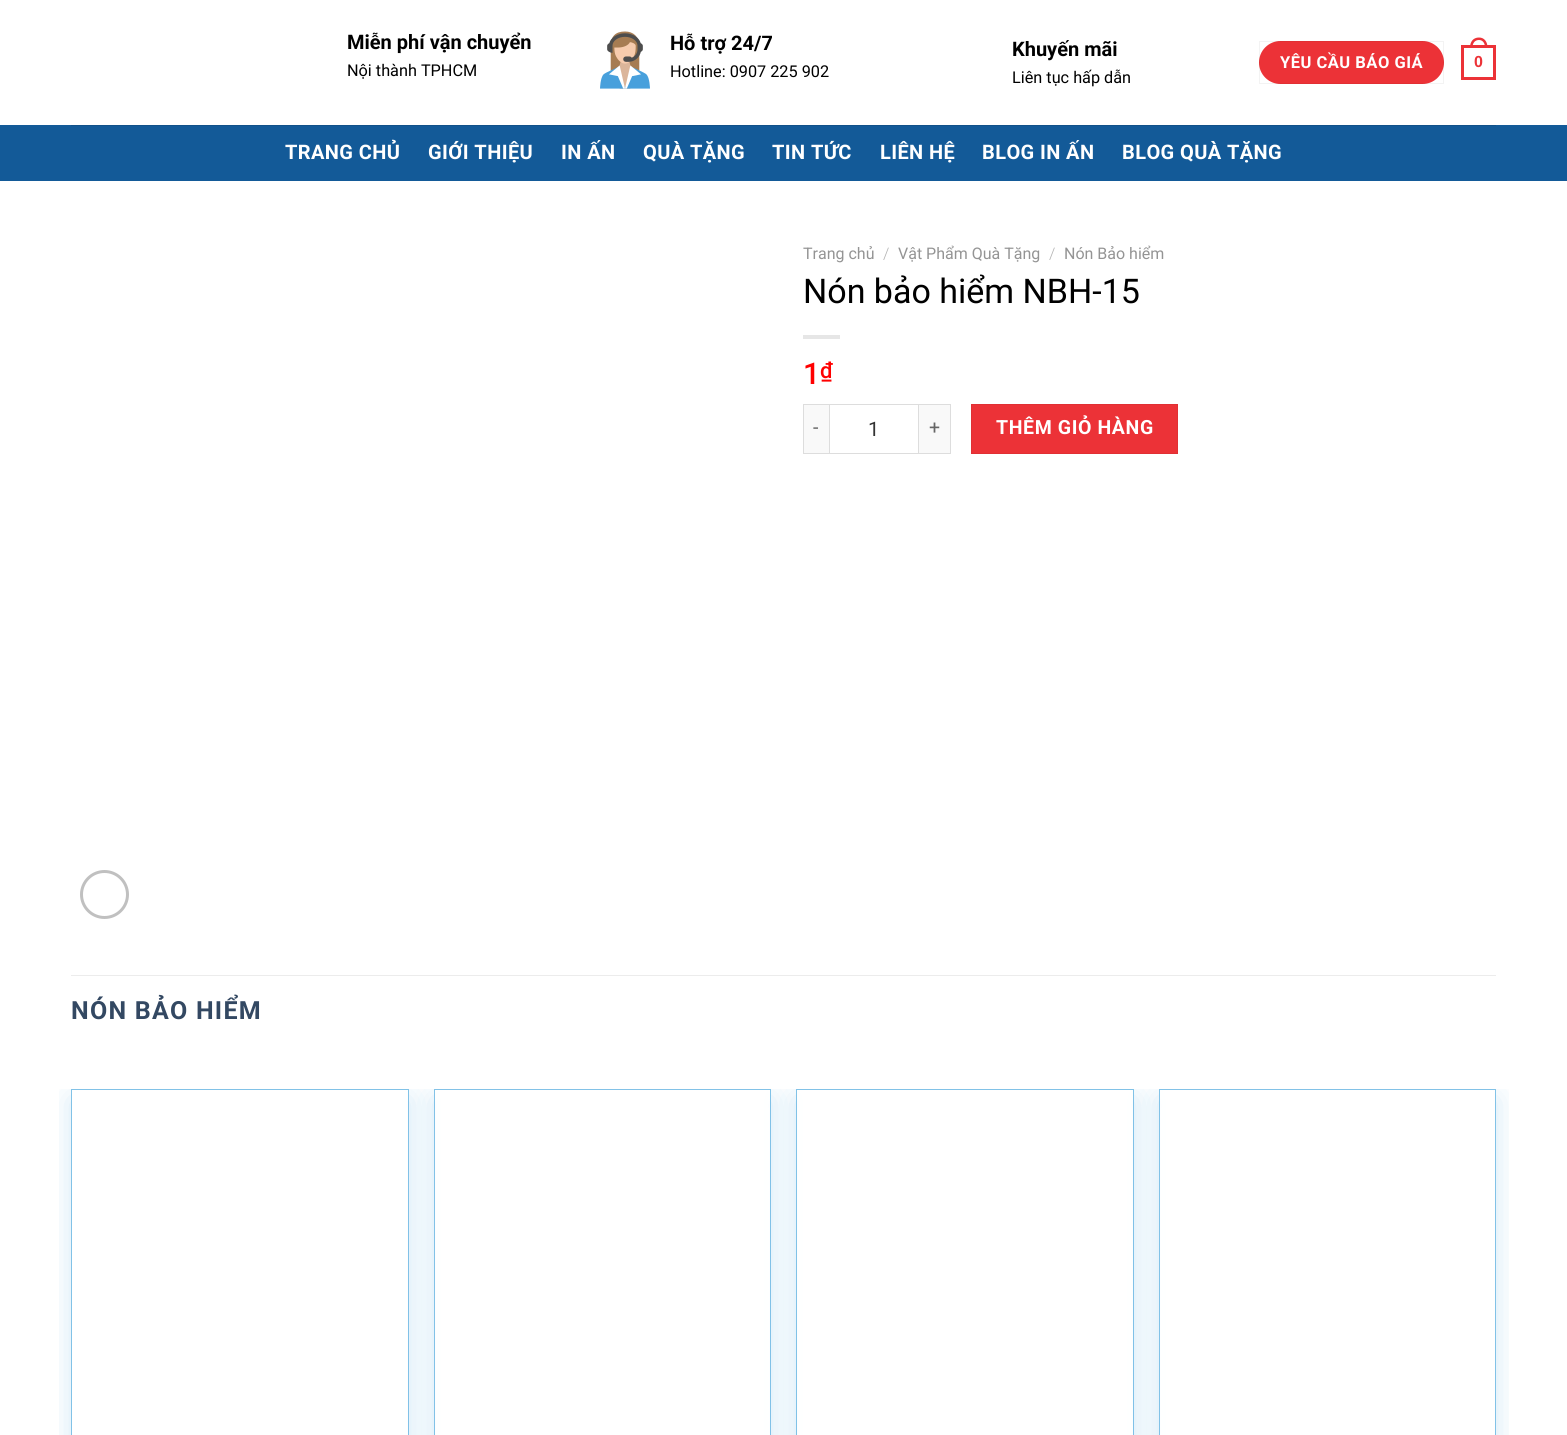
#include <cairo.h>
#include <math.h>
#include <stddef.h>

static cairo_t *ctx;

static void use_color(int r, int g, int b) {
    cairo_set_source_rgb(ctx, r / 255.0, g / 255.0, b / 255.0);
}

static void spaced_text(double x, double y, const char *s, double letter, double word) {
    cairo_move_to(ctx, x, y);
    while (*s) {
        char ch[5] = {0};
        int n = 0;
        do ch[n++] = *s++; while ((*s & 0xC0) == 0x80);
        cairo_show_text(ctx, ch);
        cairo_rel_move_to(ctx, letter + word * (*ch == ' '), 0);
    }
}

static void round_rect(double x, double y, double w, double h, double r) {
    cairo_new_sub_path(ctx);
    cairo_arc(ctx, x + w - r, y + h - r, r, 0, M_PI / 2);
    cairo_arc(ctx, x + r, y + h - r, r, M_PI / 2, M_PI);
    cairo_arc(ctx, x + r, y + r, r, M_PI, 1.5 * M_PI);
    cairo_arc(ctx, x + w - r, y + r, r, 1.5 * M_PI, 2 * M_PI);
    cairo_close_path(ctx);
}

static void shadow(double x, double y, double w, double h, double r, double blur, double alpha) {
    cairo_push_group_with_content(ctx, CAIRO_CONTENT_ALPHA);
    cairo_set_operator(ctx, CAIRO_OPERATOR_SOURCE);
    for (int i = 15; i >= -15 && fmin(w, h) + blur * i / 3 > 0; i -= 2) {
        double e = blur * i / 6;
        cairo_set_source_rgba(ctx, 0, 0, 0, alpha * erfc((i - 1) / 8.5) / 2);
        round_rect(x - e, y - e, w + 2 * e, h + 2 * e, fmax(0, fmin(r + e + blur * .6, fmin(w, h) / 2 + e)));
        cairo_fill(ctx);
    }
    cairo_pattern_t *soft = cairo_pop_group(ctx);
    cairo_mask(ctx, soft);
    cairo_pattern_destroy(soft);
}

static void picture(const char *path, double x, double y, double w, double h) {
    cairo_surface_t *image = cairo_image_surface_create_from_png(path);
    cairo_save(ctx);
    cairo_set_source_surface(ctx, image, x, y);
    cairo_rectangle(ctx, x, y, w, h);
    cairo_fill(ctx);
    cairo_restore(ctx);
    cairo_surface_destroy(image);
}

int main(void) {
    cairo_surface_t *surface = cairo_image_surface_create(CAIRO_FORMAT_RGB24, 1567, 1435);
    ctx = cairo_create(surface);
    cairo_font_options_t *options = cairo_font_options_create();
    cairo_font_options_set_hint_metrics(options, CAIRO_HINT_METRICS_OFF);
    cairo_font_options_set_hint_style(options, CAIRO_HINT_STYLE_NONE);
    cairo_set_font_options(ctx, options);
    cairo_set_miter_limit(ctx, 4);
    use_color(255, 255, 255);
    cairo_paint(ctx);
    cairo_select_font_face(ctx, "Roboto", CAIRO_FONT_SLANT_NORMAL, CAIRO_FONT_WEIGHT_BOLD);
    cairo_set_font_size(ctx, 20);
    use_color(0, 0, 0);
    cairo_move_to(ctx, 347, 49);
    cairo_show_text(ctx, "Miễn phí vận chuyển");
    cairo_select_font_face(ctx, "Roboto", CAIRO_FONT_SLANT_NORMAL, CAIRO_FONT_WEIGHT_NORMAL);
    cairo_set_font_size(ctx, 16.25);
    cairo_move_to(ctx, 347, 76);
    cairo_show_text(ctx, "Nội thành TPHCM");
    picture("img1.png", 600, 31, 50, 58);
    cairo_select_font_face(ctx, "Roboto", CAIRO_FONT_SLANT_NORMAL, CAIRO_FONT_WEIGHT_BOLD);
    cairo_set_font_size(ctx, 20);
    cairo_move_to(ctx, 670, 50);
    cairo_show_text(ctx, "Hỗ trợ 24/7");
    cairo_select_font_face(ctx, "Roboto", CAIRO_FONT_SLANT_NORMAL, CAIRO_FONT_WEIGHT_NORMAL);
    cairo_set_font_size(ctx, 16.25);
    cairo_move_to(ctx, 670, 77);
    cairo_show_text(ctx, "Hotline: 0907 225 902");
    cairo_select_font_face(ctx, "Roboto", CAIRO_FONT_SLANT_NORMAL, CAIRO_FONT_WEIGHT_BOLD);
    cairo_set_font_size(ctx, 20);
    cairo_move_to(ctx, 1012, 56);
    cairo_show_text(ctx, "Khuyến mãi");
    cairo_select_font_face(ctx, "Roboto", CAIRO_FONT_SLANT_NORMAL, CAIRO_FONT_WEIGHT_NORMAL);
    cairo_set_font_size(ctx, 16.25);
    cairo_move_to(ctx, 1012, 83);
    cairo_show_text(ctx, "Liên tục hấp dẫn");
    use_color(236, 50, 55);
    round_rect(1259, 41, 185, 43, 21.5);
    cairo_fill(ctx);
    cairo_rectangle(ctx, 1259.5, 41.5, 184, 42);
    cairo_set_source_rgba(ctx, 0, 0, 0, 0.05);
    cairo_set_line_width(ctx, 1);
    cairo_stroke(ctx);
    cairo_select_font_face(ctx, "Roboto", CAIRO_FONT_SLANT_NORMAL, CAIRO_FONT_WEIGHT_BOLD);
    cairo_set_font_size(ctx, 16.5);
    use_color(255, 255, 255);
    spaced_text(1280, 68, "YÊU CẦU BÁO GIÁ", 0.5, 0);
    cairo_rectangle(ctx, 1462.5, 46.5, 32, 32);
    use_color(236, 50, 55);
    cairo_set_line_width(ctx, 3);
    cairo_stroke(ctx);
    cairo_set_fill_rule(ctx, CAIRO_FILL_RULE_EVEN_ODD);
    cairo_new_path(ctx);
    cairo_move_to(ctx, 1479, 37.5);
    cairo_curve_to(ctx, 1484.5, 37.5, 1487.5, 42, 1487.5, 47.5);
    cairo_line_to(ctx, 1470, 47.5);
    cairo_curve_to(ctx, 1470, 42, 1473, 37.5, 1479, 37.5);
    cairo_close_path(ctx);
    cairo_move_to(ctx, 1479, 40);
    cairo_curve_to(ctx, 1483, 40, 1485, 43.5, 1485, 47.5);
    cairo_line_to(ctx, 1472.5, 47.5);
    cairo_curve_to(ctx, 1472.5, 43.5, 1474.5, 40, 1479, 40);
    cairo_close_path(ctx);
    cairo_fill(ctx);
    cairo_select_font_face(ctx, "Liberation Sans", CAIRO_FONT_SLANT_NORMAL, CAIRO_FONT_WEIGHT_BOLD);
    cairo_set_font_size(ctx, 16);
    cairo_move_to(ctx, 1474, 67);
    cairo_show_text(ctx, "0");
    use_color(19, 90, 152);
    cairo_rectangle(ctx, 0, 125, 1567, 56);
    cairo_fill(ctx);
    use_color(17, 81, 137);
    cairo_rectangle(ctx, 71, 125, 1425, 1);
    cairo_fill(ctx);
    cairo_select_font_face(ctx, "Roboto", CAIRO_FONT_SLANT_NORMAL, CAIRO_FONT_WEIGHT_BOLD);
    cairo_set_font_size(ctx, 20);
    use_color(255, 255, 255);
    spaced_text(285, 159, "TRANG CHỦ", 0.4, 0);
    spaced_text(428, 159, "GIỚI THIỆU", 0.4, 0);
    spaced_text(561, 159, "IN ẤN", 0.4, 0);
    spaced_text(643, 159, "QUÀ TẶNG", 0.4, 0);
    spaced_text(772, 159, "TIN TỨC", 0.4, 0);
    spaced_text(880, 159, "LIÊN HỆ", 0.4, 0);
    spaced_text(982, 159, "BLOG IN ẤN", 0.4, 0);
    spaced_text(1122, 159, "BLOG QUÀ TẶNG", 0.4, 0);
    cairo_select_font_face(ctx, "Roboto", CAIRO_FONT_SLANT_NORMAL, CAIRO_FONT_WEIGHT_NORMAL);
    cairo_set_font_size(ctx, 16);
    use_color(148, 148, 148);
    cairo_move_to(ctx, 803, 259);
    cairo_show_text(ctx, "Trang chủ");
    cairo_select_font_face(ctx, "Roboto Light", CAIRO_FONT_SLANT_NORMAL, CAIRO_FONT_WEIGHT_NORMAL);
    use_color(178, 178, 178);
    cairo_move_to(ctx, 883, 259);
    cairo_show_text(ctx, "/");
    cairo_select_font_face(ctx, "Roboto", CAIRO_FONT_SLANT_NORMAL, CAIRO_FONT_WEIGHT_NORMAL);
    use_color(148, 148, 148);
    cairo_move_to(ctx, 898, 259);
    cairo_show_text(ctx, "Vật Phẩm Quà Tặng");
    cairo_select_font_face(ctx, "Roboto Light", CAIRO_FONT_SLANT_NORMAL, CAIRO_FONT_WEIGHT_NORMAL);
    use_color(178, 178, 178);
    cairo_move_to(ctx, 1049, 259);
    cairo_show_text(ctx, "/");
    cairo_select_font_face(ctx, "Roboto", CAIRO_FONT_SLANT_NORMAL, CAIRO_FONT_WEIGHT_NORMAL);
    use_color(148, 148, 148);
    cairo_move_to(ctx, 1064, 259);
    cairo_show_text(ctx, "Nón Bảo hiểm");
    cairo_set_font_size(ctx, 34);
    use_color(0, 0, 0);
    cairo_move_to(ctx, 803, 303);
    cairo_show_text(ctx, "Nón bảo hiểm NBH-15");
    use_color(230, 230, 230);
    cairo_rectangle(ctx, 803, 335, 37, 4);
    cairo_fill(ctx);
    cairo_select_font_face(ctx, "Roboto Medium", CAIRO_FONT_SLANT_NORMAL, CAIRO_FONT_WEIGHT_NORMAL);
    cairo_set_font_size(ctx, 30);
    use_color(255, 0, 0);
    cairo_move_to(ctx, 803, 384);
    cairo_show_text(ctx, "1");
    cairo_set_font_size(ctx, 22);
    cairo_move_to(ctx, 820, 378);
    cairo_show_text(ctx, "₫");
    use_color(249, 249, 249);
    cairo_rectangle(ctx, 804, 405, 25, 48);
    cairo_fill(ctx);
    use_color(221, 221, 221);
    cairo_rectangle(ctx, 803, 404, 26, 1);
    cairo_fill(ctx);
    cairo_rectangle(ctx, 803, 453, 26, 1);
    cairo_fill(ctx);
    cairo_rectangle(ctx, 803, 404, 1, 50);
    cairo_fill(ctx);
    cairo_select_font_face(ctx, "Roboto", CAIRO_FONT_SLANT_NORMAL, CAIRO_FONT_WEIGHT_NORMAL);
    cairo_set_font_size(ctx, 19.5);
    use_color(102, 102, 102);
    spaced_text(813, 434, "-", 0.6, 0);
    cairo_rectangle(ctx, 829.5, 404.5, 89, 49);
    use_color(221, 221, 221);
    cairo_set_line_width(ctx, 1);
    cairo_stroke(ctx);
    cairo_set_font_size(ctx, 20);
    use_color(51, 51, 51);
    cairo_move_to(ctx, 868, 436);
    cairo_show_text(ctx, "1");
    use_color(249, 249, 249);
    cairo_rectangle(ctx, 919, 405, 31, 48);
    cairo_fill(ctx);
    use_color(221, 221, 221);
    cairo_rectangle(ctx, 919, 404, 32, 1);
    cairo_fill(ctx);
    cairo_rectangle(ctx, 950, 404, 1, 50);
    cairo_fill(ctx);
    cairo_rectangle(ctx, 919, 453, 32, 1);
    cairo_fill(ctx);
    cairo_set_font_size(ctx, 19.5);
    use_color(102, 102, 102);
    spaced_text(929, 434, "+", 0.6, 0);
    use_color(236, 50, 55);
    cairo_rectangle(ctx, 971.5, 404.5, 206, 49);
    cairo_fill_preserve(ctx);
    use_color(224, 48, 52);
    cairo_stroke(ctx);
    cairo_select_font_face(ctx, "Roboto", CAIRO_FONT_SLANT_NORMAL, CAIRO_FONT_WEIGHT_BOLD);
    use_color(255, 255, 255);
    spaced_text(996, 434, "THÊM GIỎ HÀNG", 0.6, 0);
    cairo_new_path(ctx);
    cairo_arc(ctx, 104.5, 894.5, 23, 0, 2 * M_PI);
    use_color(192, 192, 192);
    cairo_set_line_width(ctx, 3);
    cairo_stroke(ctx);
    use_color(236, 236, 236);
    cairo_rectangle(ctx, 71, 975, 1425, 1);
    cairo_fill(ctx);
    cairo_set_font_size(ctx, 25);
    use_color(51, 72, 98);
    spaced_text(71, 1019, "NÓN BẢO HIỂM", 1.25, 0);
    cairo_save(ctx);
    cairo_set_fill_rule(ctx, CAIRO_FILL_RULE_WINDING);
    cairo_rectangle(ctx, 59, 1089, 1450, 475);
    cairo_clip(ctx);
    cairo_set_fill_rule(ctx, CAIRO_FILL_RULE_EVEN_ODD);
    cairo_new_path(ctx);
    cairo_move_to(ctx, 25, 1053);
    cairo_line_to(ctx, 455, 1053);
    cairo_line_to(ctx, 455, 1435);
    cairo_line_to(ctx, 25, 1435);
    cairo_close_path(ctx);
    cairo_move_to(ctx, 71, 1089);
    cairo_line_to(ctx, 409, 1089);
    cairo_line_to(ctx, 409, 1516);
    cairo_line_to(ctx, 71, 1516);
    cairo_close_path(ctx);
    cairo_clip(ctx);
    use_color(32, 146, 213);
    shadow(71, 1099, 338, 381, 0, 15, 0.2);
    cairo_restore(ctx);
    cairo_rectangle(ctx, 71.5, 1089.5, 337, 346);
    cairo_set_source_rgba(ctx, 0.125, 0.573, 0.835, 0.56);
    cairo_set_line_width(ctx, 1);
    cairo_stroke(ctx);
    cairo_save(ctx);
    cairo_set_fill_rule(ctx, CAIRO_FILL_RULE_WINDING);
    cairo_rectangle(ctx, 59, 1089, 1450, 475);
    cairo_clip(ctx);
    cairo_set_fill_rule(ctx, CAIRO_FILL_RULE_EVEN_ODD);
    cairo_new_path(ctx);
    cairo_move_to(ctx, 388, 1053);
    cairo_line_to(ctx, 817, 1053);
    cairo_line_to(ctx, 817, 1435);
    cairo_line_to(ctx, 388, 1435);
    cairo_close_path(ctx);
    cairo_move_to(ctx, 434, 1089);
    cairo_line_to(ctx, 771, 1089);
    cairo_line_to(ctx, 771, 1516);
    cairo_line_to(ctx, 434, 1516);
    cairo_close_path(ctx);
    cairo_clip(ctx);
    use_color(32, 146, 213);
    shadow(434, 1099, 337, 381, 0, 15, 0.2);
    cairo_restore(ctx);
    cairo_rectangle(ctx, 434.5, 1089.5, 336, 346);
    use_color(130, 194, 231);
    cairo_stroke(ctx);
    cairo_save(ctx);
    cairo_set_fill_rule(ctx, CAIRO_FILL_RULE_WINDING);
    cairo_rectangle(ctx, 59, 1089, 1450, 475);
    cairo_clip(ctx);
    cairo_set_fill_rule(ctx, CAIRO_FILL_RULE_EVEN_ODD);
    cairo_new_path(ctx);
    cairo_move_to(ctx, 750, 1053);
    cairo_line_to(ctx, 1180, 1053);
    cairo_line_to(ctx, 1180, 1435);
    cairo_line_to(ctx, 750, 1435);
    cairo_close_path(ctx);
    cairo_move_to(ctx, 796, 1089);
    cairo_line_to(ctx, 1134, 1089);
    cairo_line_to(ctx, 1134, 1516);
    cairo_line_to(ctx, 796, 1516);
    cairo_close_path(ctx);
    cairo_clip(ctx);
    use_color(32, 146, 213);
    shadow(796, 1099, 338, 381, 0, 15, 0.2);
    cairo_restore(ctx);
    cairo_rectangle(ctx, 796.5, 1089.5, 337, 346);
    cairo_set_source_rgba(ctx, 0.125, 0.573, 0.835, 0.56);
    cairo_stroke(ctx);
    cairo_save(ctx);
    cairo_set_fill_rule(ctx, CAIRO_FILL_RULE_WINDING);
    cairo_rectangle(ctx, 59, 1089, 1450, 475);
    cairo_clip(ctx);
    cairo_set_fill_rule(ctx, CAIRO_FILL_RULE_EVEN_ODD);
    cairo_new_path(ctx);
    cairo_move_to(ctx, 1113, 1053);
    cairo_line_to(ctx, 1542, 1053);
    cairo_line_to(ctx, 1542, 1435);
    cairo_line_to(ctx, 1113, 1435);
    cairo_close_path(ctx);
    cairo_move_to(ctx, 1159, 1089);
    cairo_line_to(ctx, 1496, 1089);
    cairo_line_to(ctx, 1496, 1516);
    cairo_line_to(ctx, 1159, 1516);
    cairo_close_path(ctx);
    cairo_clip(ctx);
    use_color(32, 146, 213);
    shadow(1159, 1099, 337, 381, 0, 15, 0.2);
    cairo_restore(ctx);
    cairo_rectangle(ctx, 1159.5, 1089.5, 336, 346);
    use_color(130, 194, 231);
    cairo_stroke(ctx);
    cairo_surface_write_to_png(surface, "result.png");
    cairo_font_options_destroy(options);
    cairo_destroy(ctx);
    cairo_surface_destroy(surface);
    return 0;
}
